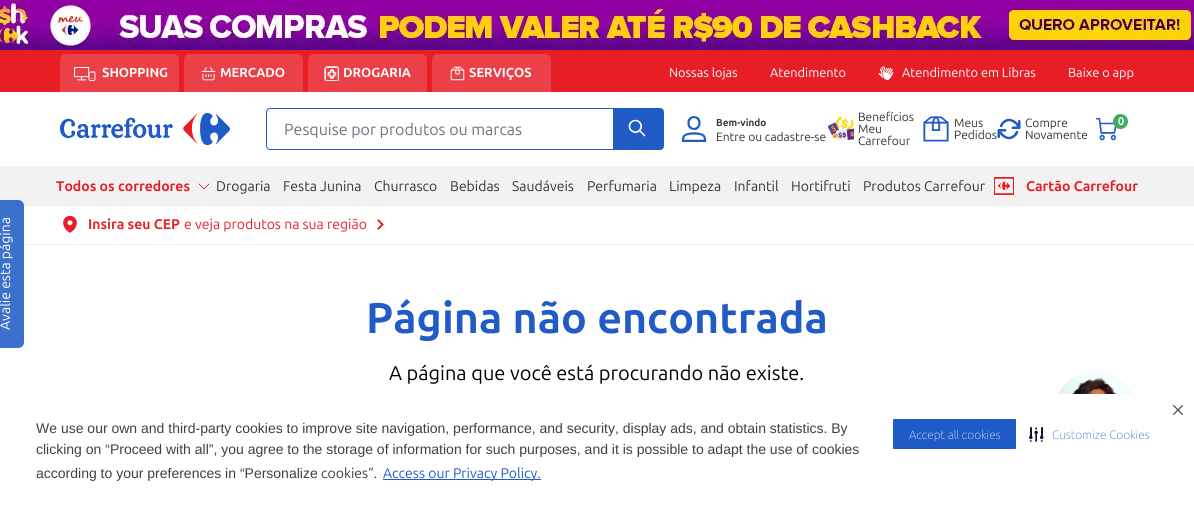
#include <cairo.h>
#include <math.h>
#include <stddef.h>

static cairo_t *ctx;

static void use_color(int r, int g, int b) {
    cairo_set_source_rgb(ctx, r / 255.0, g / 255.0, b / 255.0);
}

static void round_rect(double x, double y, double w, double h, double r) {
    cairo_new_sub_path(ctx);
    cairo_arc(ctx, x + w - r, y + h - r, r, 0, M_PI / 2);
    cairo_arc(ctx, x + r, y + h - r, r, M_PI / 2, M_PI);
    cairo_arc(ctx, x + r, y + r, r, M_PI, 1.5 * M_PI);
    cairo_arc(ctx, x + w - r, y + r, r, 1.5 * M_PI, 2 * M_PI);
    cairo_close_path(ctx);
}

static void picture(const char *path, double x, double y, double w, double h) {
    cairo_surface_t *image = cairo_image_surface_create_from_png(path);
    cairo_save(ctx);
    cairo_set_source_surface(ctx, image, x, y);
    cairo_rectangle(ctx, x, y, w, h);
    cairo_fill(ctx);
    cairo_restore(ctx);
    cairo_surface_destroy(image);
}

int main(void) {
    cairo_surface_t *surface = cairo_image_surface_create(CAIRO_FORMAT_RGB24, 1194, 511);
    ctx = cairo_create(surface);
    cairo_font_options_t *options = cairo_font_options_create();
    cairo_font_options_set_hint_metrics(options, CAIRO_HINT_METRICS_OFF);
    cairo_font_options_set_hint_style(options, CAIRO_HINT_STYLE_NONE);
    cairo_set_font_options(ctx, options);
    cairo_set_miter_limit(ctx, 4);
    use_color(255, 255, 255);
    cairo_paint(ctx);
    use_color(242, 242, 242);
    cairo_rectangle(ctx, 0, 166, 1194, 40);
    cairo_fill(ctx);
    cairo_rectangle(ctx, 0, 244, 1194, 1);
    cairo_fill(ctx);
    cairo_set_source_rgba(ctx, 0.118, 0.357, 0.776, 0.87);
    cairo_new_path(ctx);
    cairo_move_to(ctx, -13, 348);
    cairo_line_to(ctx, -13, 200);
    cairo_line_to(ctx, 18, 200);
    cairo_curve_to(ctx, 21, 200, 24, 202, 24, 206);
    cairo_line_to(ctx, 24, 342);
    cairo_curve_to(ctx, 24, 346, 21, 348, 18, 348);
    cairo_close_path(ctx);
    cairo_fill(ctx);
    cairo_select_font_face(ctx, "Ubuntu", CAIRO_FONT_SLANT_NORMAL, CAIRO_FONT_WEIGHT_NORMAL);
    cairo_set_font_size(ctx, 14);
    use_color(255, 255, 255);
    cairo_save(ctx);
    cairo_translate(ctx, 10, 330);
    cairo_rotate(ctx, -90 * M_PI / 180);
    cairo_move_to(ctx, 0, 0);
    cairo_show_text(ctx, "Avalie esta página");
    cairo_restore(ctx);
    picture("img1.png", 0, 0, 1194, 50);
    use_color(232, 30, 38);
    cairo_rectangle(ctx, 0, 50, 1194, 42);
    cairo_fill(ctx);
    use_color(235, 64, 71);
    cairo_new_path(ctx);
    cairo_move_to(ctx, 66, 54);
    cairo_line_to(ctx, 173, 54);
    cairo_curve_to(ctx, 176.5, 54, 179, 56.5, 179, 60);
    cairo_line_to(ctx, 179, 92);
    cairo_line_to(ctx, 60, 92);
    cairo_line_to(ctx, 60, 60);
    cairo_curve_to(ctx, 60, 56.5, 62.5, 54, 66, 54);
    cairo_close_path(ctx);
    cairo_fill(ctx);
    picture("img2.png", 74, 67, 22, 14);
    cairo_select_font_face(ctx, "Ubuntu", CAIRO_FONT_SLANT_NORMAL, CAIRO_FONT_WEIGHT_BOLD);
    cairo_set_font_size(ctx, 13);
    use_color(255, 255, 255);
    cairo_move_to(ctx, 102, 77);
    cairo_show_text(ctx, "SHOPPING");
    use_color(235, 64, 71);
    cairo_new_path(ctx);
    cairo_move_to(ctx, 190, 54);
    cairo_line_to(ctx, 297, 54);
    cairo_curve_to(ctx, 300.5, 54, 303, 56.5, 303, 60);
    cairo_line_to(ctx, 303, 92);
    cairo_line_to(ctx, 184, 92);
    cairo_line_to(ctx, 184, 60);
    cairo_curve_to(ctx, 184, 56.5, 186.5, 54, 190, 54);
    cairo_close_path(ctx);
    cairo_fill(ctx);
    picture("img3.png", 201, 67, 15, 14);
    use_color(255, 255, 255);
    cairo_move_to(ctx, 220, 77);
    cairo_show_text(ctx, "MERCADO");
    use_color(235, 64, 71);
    cairo_new_path(ctx);
    cairo_move_to(ctx, 314, 54);
    cairo_line_to(ctx, 421, 54);
    cairo_curve_to(ctx, 424.5, 54, 427, 56.5, 427, 60);
    cairo_line_to(ctx, 427, 92);
    cairo_line_to(ctx, 308, 92);
    cairo_line_to(ctx, 308, 60);
    cairo_curve_to(ctx, 308, 56.5, 310.5, 54, 314, 54);
    cairo_close_path(ctx);
    cairo_fill(ctx);
    picture("img4.png", 324, 66, 15, 15);
    use_color(255, 255, 255);
    cairo_move_to(ctx, 343, 77);
    cairo_show_text(ctx, "DROGARIA");
    use_color(235, 64, 71);
    cairo_new_path(ctx);
    cairo_move_to(ctx, 438, 54);
    cairo_line_to(ctx, 545, 54);
    cairo_curve_to(ctx, 548.5, 54, 551, 56.5, 551, 60);
    cairo_line_to(ctx, 551, 92);
    cairo_line_to(ctx, 432, 92);
    cairo_line_to(ctx, 432, 60);
    cairo_curve_to(ctx, 432, 56.5, 434.5, 54, 438, 54);
    cairo_close_path(ctx);
    cairo_fill(ctx);
    picture("img5.png", 450, 66, 15, 15);
    use_color(255, 255, 255);
    cairo_move_to(ctx, 469, 77);
    cairo_show_text(ctx, "SERVIÇOS");
    cairo_select_font_face(ctx, "Ubuntu", CAIRO_FONT_SLANT_NORMAL, CAIRO_FONT_WEIGHT_NORMAL);
    cairo_set_font_size(ctx, 12.75);
    cairo_move_to(ctx, 669, 77);
    cairo_show_text(ctx, "Nossas lojas");
    cairo_move_to(ctx, 770, 77);
    cairo_show_text(ctx, "Atendimento");
    picture("img6.png", 878, 66, 16, 14);
    cairo_move_to(ctx, 902, 77);
    cairo_show_text(ctx, "Atendimento em Libras");
    cairo_move_to(ctx, 1068, 77);
    cairo_show_text(ctx, "Baixe o app");
    picture("img7.png", 60, 113, 170, 32);
    round_rect(266.5, 108.5, 397, 41, 3.5);
    use_color(32, 91, 198);
    cairo_set_line_width(ctx, 1);
    cairo_stroke(ctx);
    cairo_set_font_size(ctx, 16);
    use_color(107, 114, 128);
    cairo_move_to(ctx, 284, 135);
    cairo_show_text(ctx, "Pesquise por produtos ou marcas");
    use_color(32, 91, 198);
    cairo_rectangle(ctx, 613, 109, 50, 40);
    cairo_fill(ctx);
    picture("img8.png", 628, 119, 18, 18);
    picture("img9.png", 682, 116, 24, 26);
    cairo_select_font_face(ctx, "Ubuntu", CAIRO_FONT_SLANT_NORMAL, CAIRO_FONT_WEIGHT_BOLD);
    cairo_set_font_size(ctx, 10);
    use_color(51, 51, 51);
    cairo_move_to(ctx, 716, 126);
    cairo_show_text(ctx, "Bem-vindo");
    cairo_select_font_face(ctx, "Ubuntu", CAIRO_FONT_SLANT_NORMAL, CAIRO_FONT_WEIGHT_NORMAL);
    cairo_set_font_size(ctx, 12);
    cairo_move_to(ctx, 716, 141);
    cairo_show_text(ctx, "Entre ou cadastre-se");
    picture("img10.png", 828, 117, 26, 24);
    cairo_move_to(ctx, 858, 121);
    cairo_show_text(ctx, "Benefícios");
    cairo_move_to(ctx, 858, 133);
    cairo_show_text(ctx, "Meu");
    cairo_move_to(ctx, 858, 145);
    cairo_show_text(ctx, "Carrefour");
    picture("img11.png", 923, 116, 26, 26);
    cairo_move_to(ctx, 954, 127);
    cairo_show_text(ctx, "Meus");
    cairo_move_to(ctx, 954, 139);
    cairo_show_text(ctx, "Pedidos");
    picture("img12.png", 997, 118, 24, 22);
    cairo_move_to(ctx, 1025, 127);
    cairo_show_text(ctx, "Compre");
    cairo_move_to(ctx, 1025, 139);
    cairo_show_text(ctx, "Novamente");
    picture("img13.png", 1095, 118, 22, 23);
    use_color(64, 170, 96);
    cairo_arc(ctx, 1120.5, 121.5, 7.5, 0, 2 * M_PI);
    cairo_fill(ctx);
    cairo_select_font_face(ctx, "Ubuntu", CAIRO_FONT_SLANT_NORMAL, CAIRO_FONT_WEIGHT_BOLD);
    cairo_set_font_size(ctx, 11);
    use_color(255, 255, 255);
    cairo_move_to(ctx, 1118, 125);
    cairo_show_text(ctx, "0");
    cairo_set_font_size(ctx, 14);
    use_color(232, 30, 38);
    cairo_move_to(ctx, 56, 191);
    cairo_show_text(ctx, "Todos os corredores");
    picture("img14.png", 198, 183, 12, 6);
    cairo_select_font_face(ctx, "Ubuntu", CAIRO_FONT_SLANT_NORMAL, CAIRO_FONT_WEIGHT_NORMAL);
    use_color(51, 51, 51);
    cairo_move_to(ctx, 216, 191);
    cairo_show_text(ctx, "Drogaria");
    cairo_move_to(ctx, 283, 191);
    cairo_show_text(ctx, "Festa Junina");
    cairo_move_to(ctx, 374, 191);
    cairo_show_text(ctx, "Churrasco");
    cairo_move_to(ctx, 450, 191);
    cairo_show_text(ctx, "Bebidas");
    cairo_move_to(ctx, 512, 191);
    cairo_show_text(ctx, "Saudáveis");
    cairo_move_to(ctx, 587, 191);
    cairo_show_text(ctx, "Perfumaria");
    cairo_move_to(ctx, 669, 191);
    cairo_show_text(ctx, "Limpeza");
    cairo_move_to(ctx, 734, 191);
    cairo_show_text(ctx, "Infantil");
    cairo_move_to(ctx, 791, 191);
    cairo_show_text(ctx, "Hortifruti");
    cairo_move_to(ctx, 863, 191);
    cairo_show_text(ctx, "Produtos Carrefour");
    picture("img15.png", 994, 177, 20, 18);
    cairo_select_font_face(ctx, "Ubuntu", CAIRO_FONT_SLANT_NORMAL, CAIRO_FONT_WEIGHT_BOLD);
    use_color(232, 30, 38);
    cairo_move_to(ctx, 1026, 191);
    cairo_show_text(ctx, "Cartão Carrefour");
    picture("img16.png", 63, 215, 14, 18);
    cairo_move_to(ctx, 88, 229);
    cairo_show_text(ctx, "Insira seu CEP");
    cairo_select_font_face(ctx, "Ubuntu", CAIRO_FONT_SLANT_NORMAL, CAIRO_FONT_WEIGHT_NORMAL);
    cairo_move_to(ctx, 184, 229);
    cairo_show_text(ctx, "e veja produtos na sua região");
    picture("img17.png", 377, 219, 7, 11);
    cairo_select_font_face(ctx, "Ubuntu", CAIRO_FONT_SLANT_NORMAL, CAIRO_FONT_WEIGHT_BOLD);
    cairo_set_font_size(ctx, 43);
    use_color(32, 91, 198);
    cairo_move_to(ctx, 366, 333);
    cairo_show_text(ctx, "Página não encontrada");
    cairo_select_font_face(ctx, "Ubuntu", CAIRO_FONT_SLANT_NORMAL, CAIRO_FONT_WEIGHT_NORMAL);
    cairo_set_font_size(ctx, 20);
    use_color(0, 0, 0);
    cairo_move_to(ctx, 389, 380);
    cairo_show_text(ctx, "A página que você está procurando não existe.");
    picture("img18.png", 1052, 371, 86, 23);
    cairo_select_font_face(ctx, "Liberation Sans", CAIRO_FONT_SLANT_NORMAL, CAIRO_FONT_WEIGHT_NORMAL);
    cairo_set_font_size(ctx, 14);
    use_color(64, 64, 64);
    cairo_move_to(ctx, 36, 433);
    cairo_show_text(ctx, "We use our own and third-party cookies to improve site navigation, performance, and security, display ads, and obtain statistics. By");
    cairo_move_to(ctx, 36, 454);
    cairo_show_text(ctx, "clicking on “Proceed with all”, you agree to the storage of information for such purposes, and it is possible to adapt the use of cookies");
    cairo_move_to(ctx, 36, 478);
    cairo_show_text(ctx, "according to your preferences in “Personalize");
    cairo_select_font_face(ctx, "Ubuntu", CAIRO_FONT_SLANT_NORMAL, CAIRO_FONT_WEIGHT_NORMAL);
    cairo_move_to(ctx, 321, 478);
    cairo_show_text(ctx, "cookies”.");
    use_color(30, 91, 198);
    cairo_rectangle(ctx, 383, 479, 158, 1);
    cairo_fill(ctx);
    use_color(32, 91, 198);
    cairo_move_to(ctx, 383, 478);
    cairo_show_text(ctx, "Access our Privacy Policy.");
    picture("img19.png", 1173, 405, 10, 10);
    use_color(30, 91, 198);
    round_rect(892.5, 418.5, 124, 31, 1.5);
    cairo_fill_preserve(ctx);
    use_color(255, 255, 255);
    cairo_stroke(ctx);
    cairo_select_font_face(ctx, "Ubuntu Thin", CAIRO_FONT_SLANT_NORMAL, CAIRO_FONT_WEIGHT_NORMAL);
    cairo_set_font_size(ctx, 12);
    cairo_move_to(ctx, 909, 439);
    cairo_show_text(ctx, "Accept all cookies");
    picture("img20.png", 1029, 427, 15, 15);
    use_color(32, 91, 198);
    cairo_move_to(ctx, 1052, 439);
    cairo_show_text(ctx, "Customize Cookies");
    cairo_surface_write_to_png(surface, "result.png");
    cairo_font_options_destroy(options);
    cairo_destroy(ctx);
    cairo_surface_destroy(surface);
    return 0;
}
